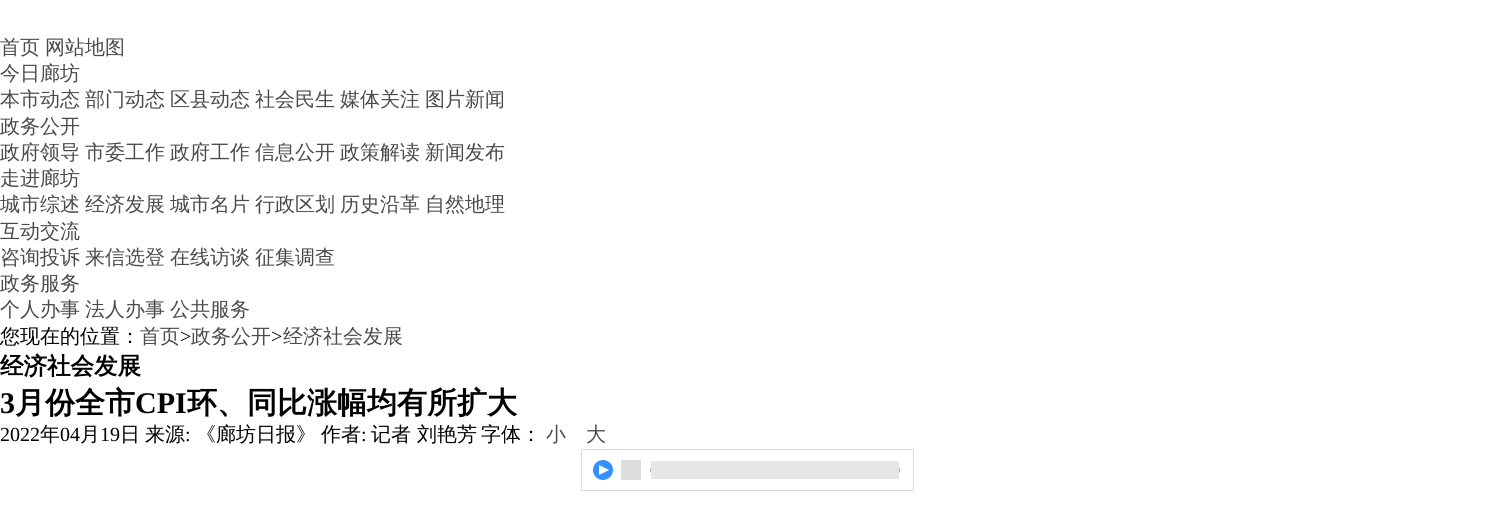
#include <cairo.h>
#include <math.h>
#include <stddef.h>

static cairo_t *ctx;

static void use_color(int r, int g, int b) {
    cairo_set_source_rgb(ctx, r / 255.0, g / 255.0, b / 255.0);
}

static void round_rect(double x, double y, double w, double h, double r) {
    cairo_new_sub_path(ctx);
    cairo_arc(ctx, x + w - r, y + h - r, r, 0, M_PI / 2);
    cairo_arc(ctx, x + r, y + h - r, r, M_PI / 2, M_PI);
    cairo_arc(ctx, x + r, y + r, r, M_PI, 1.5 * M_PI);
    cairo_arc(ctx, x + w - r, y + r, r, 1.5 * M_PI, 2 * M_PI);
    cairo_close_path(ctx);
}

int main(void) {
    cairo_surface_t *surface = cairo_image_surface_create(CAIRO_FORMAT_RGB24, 1495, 505);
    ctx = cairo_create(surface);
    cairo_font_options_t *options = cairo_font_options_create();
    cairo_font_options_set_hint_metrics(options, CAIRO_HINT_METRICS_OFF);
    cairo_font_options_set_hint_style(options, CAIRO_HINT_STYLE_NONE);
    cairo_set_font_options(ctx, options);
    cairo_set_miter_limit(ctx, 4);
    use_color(255, 255, 255);
    cairo_paint(ctx);
    cairo_select_font_face(ctx, "WenQuanYi Zen Hei Medium", CAIRO_FONT_SLANT_NORMAL, CAIRO_FONT_WEIGHT_NORMAL);
    cairo_set_font_size(ctx, 20);
    use_color(74, 74, 74);
    cairo_move_to(ctx, 0, 54);
    cairo_show_text(ctx, "首页");
    cairo_move_to(ctx, 45, 54);
    cairo_show_text(ctx, "网站地图");
    cairo_move_to(ctx, 0, 80);
    cairo_show_text(ctx, "今日廊坊");
    cairo_move_to(ctx, 0, 106);
    cairo_show_text(ctx, "本市动态");
    cairo_move_to(ctx, 85, 106);
    cairo_show_text(ctx, "部门动态");
    cairo_move_to(ctx, 170, 106);
    cairo_show_text(ctx, "区县动态");
    cairo_move_to(ctx, 255, 106);
    cairo_show_text(ctx, "社会民生");
    cairo_move_to(ctx, 340, 106);
    cairo_show_text(ctx, "媒体关注");
    cairo_move_to(ctx, 425, 106);
    cairo_show_text(ctx, "图片新闻");
    cairo_move_to(ctx, 0, 133);
    cairo_show_text(ctx, "政务公开");
    cairo_move_to(ctx, 0, 159);
    cairo_show_text(ctx, "政府领导");
    cairo_move_to(ctx, 85, 159);
    cairo_show_text(ctx, "市委工作");
    cairo_move_to(ctx, 170, 159);
    cairo_show_text(ctx, "政府工作");
    cairo_move_to(ctx, 255, 159);
    cairo_show_text(ctx, "信息公开");
    cairo_move_to(ctx, 340, 159);
    cairo_show_text(ctx, "政策解读");
    cairo_move_to(ctx, 425, 159);
    cairo_show_text(ctx, "新闻发布");
    cairo_move_to(ctx, 0, 185);
    cairo_show_text(ctx, "走进廊坊");
    cairo_move_to(ctx, 0, 211);
    cairo_show_text(ctx, "城市综述");
    cairo_move_to(ctx, 85, 211);
    cairo_show_text(ctx, "经济发展");
    cairo_move_to(ctx, 170, 211);
    cairo_show_text(ctx, "城市名片");
    cairo_move_to(ctx, 255, 211);
    cairo_show_text(ctx, "行政区划");
    cairo_move_to(ctx, 340, 211);
    cairo_show_text(ctx, "历史沿革");
    cairo_move_to(ctx, 425, 211);
    cairo_show_text(ctx, "自然地理");
    cairo_move_to(ctx, 0, 238);
    cairo_show_text(ctx, "互动交流");
    cairo_move_to(ctx, 0, 264);
    cairo_show_text(ctx, "咨询投诉");
    cairo_move_to(ctx, 85, 264);
    cairo_show_text(ctx, "来信选登");
    cairo_move_to(ctx, 170, 264);
    cairo_show_text(ctx, "在线访谈");
    cairo_move_to(ctx, 255, 264);
    cairo_show_text(ctx, "征集调查");
    cairo_move_to(ctx, 0, 290);
    cairo_show_text(ctx, "政务服务");
    cairo_move_to(ctx, 0, 316);
    cairo_show_text(ctx, "个人办事");
    cairo_move_to(ctx, 85, 316);
    cairo_show_text(ctx, "法人办事");
    cairo_move_to(ctx, 170, 316);
    cairo_show_text(ctx, "公共服务");
    use_color(0, 0, 0);
    cairo_move_to(ctx, 0, 343);
    cairo_show_text(ctx, "您现在的位置：");
    use_color(74, 74, 74);
    cairo_move_to(ctx, 140, 343);
    cairo_show_text(ctx, "首页");
    cairo_select_font_face(ctx, "Liberation Serif", CAIRO_FONT_SLANT_NORMAL, CAIRO_FONT_WEIGHT_NORMAL);
    use_color(0, 0, 0);
    cairo_move_to(ctx, 180, 343);
    cairo_show_text(ctx, ">");
    cairo_select_font_face(ctx, "WenQuanYi Zen Hei Medium", CAIRO_FONT_SLANT_NORMAL, CAIRO_FONT_WEIGHT_NORMAL);
    use_color(74, 74, 74);
    cairo_move_to(ctx, 191, 343);
    cairo_show_text(ctx, "政务公开");
    cairo_select_font_face(ctx, "Liberation Serif", CAIRO_FONT_SLANT_NORMAL, CAIRO_FONT_WEIGHT_NORMAL);
    use_color(0, 0, 0);
    cairo_move_to(ctx, 271, 343);
    cairo_show_text(ctx, ">");
    cairo_select_font_face(ctx, "WenQuanYi Zen Hei Medium", CAIRO_FONT_SLANT_NORMAL, CAIRO_FONT_WEIGHT_NORMAL);
    use_color(74, 74, 74);
    cairo_move_to(ctx, 283, 343);
    cairo_show_text(ctx, "经济社会发展");
    cairo_select_font_face(ctx, "WenQuanYi Zen Hei", CAIRO_FONT_SLANT_NORMAL, CAIRO_FONT_WEIGHT_BOLD);
    cairo_set_font_size(ctx, 23.5);
    use_color(0, 0, 0);
    cairo_move_to(ctx, 0, 374);
    cairo_show_text(ctx, "经济社会发展");
    cairo_select_font_face(ctx, "Liberation Serif", CAIRO_FONT_SLANT_NORMAL, CAIRO_FONT_WEIGHT_BOLD);
    cairo_set_font_size(ctx, 30);
    cairo_move_to(ctx, 0, 413);
    cairo_show_text(ctx, "3");
    cairo_select_font_face(ctx, "WenQuanYi Zen Hei", CAIRO_FONT_SLANT_NORMAL, CAIRO_FONT_WEIGHT_BOLD);
    cairo_move_to(ctx, 15, 413);
    cairo_show_text(ctx, "月份全市");
    cairo_select_font_face(ctx, "Liberation Serif", CAIRO_FONT_SLANT_NORMAL, CAIRO_FONT_WEIGHT_BOLD);
    cairo_move_to(ctx, 135, 413);
    cairo_show_text(ctx, "CPI");
    cairo_select_font_face(ctx, "WenQuanYi Zen Hei", CAIRO_FONT_SLANT_NORMAL, CAIRO_FONT_WEIGHT_BOLD);
    cairo_move_to(ctx, 187, 413);
    cairo_show_text(ctx, "环、同比涨幅均有所扩大");
    cairo_select_font_face(ctx, "Liberation Serif", CAIRO_FONT_SLANT_NORMAL, CAIRO_FONT_WEIGHT_NORMAL);
    cairo_set_font_size(ctx, 20);
    cairo_move_to(ctx, 0, 441);
    cairo_show_text(ctx, "2022");
    cairo_select_font_face(ctx, "WenQuanYi Zen Hei Medium", CAIRO_FONT_SLANT_NORMAL, CAIRO_FONT_WEIGHT_NORMAL);
    cairo_move_to(ctx, 40, 441);
    cairo_show_text(ctx, "年");
    cairo_select_font_face(ctx, "Liberation Serif", CAIRO_FONT_SLANT_NORMAL, CAIRO_FONT_WEIGHT_NORMAL);
    cairo_move_to(ctx, 60, 441);
    cairo_show_text(ctx, "04");
    cairo_select_font_face(ctx, "WenQuanYi Zen Hei Medium", CAIRO_FONT_SLANT_NORMAL, CAIRO_FONT_WEIGHT_NORMAL);
    cairo_move_to(ctx, 80, 441);
    cairo_show_text(ctx, "月");
    cairo_select_font_face(ctx, "Liberation Serif", CAIRO_FONT_SLANT_NORMAL, CAIRO_FONT_WEIGHT_NORMAL);
    cairo_move_to(ctx, 100, 441);
    cairo_show_text(ctx, "19");
    cairo_select_font_face(ctx, "WenQuanYi Zen Hei Medium", CAIRO_FONT_SLANT_NORMAL, CAIRO_FONT_WEIGHT_NORMAL);
    cairo_move_to(ctx, 120, 441);
    cairo_show_text(ctx, "日");
    cairo_move_to(ctx, 145, 441);
    cairo_show_text(ctx, "来源");
    cairo_select_font_face(ctx, "Liberation Serif", CAIRO_FONT_SLANT_NORMAL, CAIRO_FONT_WEIGHT_NORMAL);
    cairo_move_to(ctx, 185, 441);
    cairo_show_text(ctx, ":");
    cairo_select_font_face(ctx, "WenQuanYi Zen Hei Medium", CAIRO_FONT_SLANT_NORMAL, CAIRO_FONT_WEIGHT_NORMAL);
    cairo_move_to(ctx, 196, 441);
    cairo_show_text(ctx, "《廊坊日报》");
    cairo_move_to(ctx, 321, 441);
    cairo_show_text(ctx, "作者");
    cairo_select_font_face(ctx, "Liberation Serif", CAIRO_FONT_SLANT_NORMAL, CAIRO_FONT_WEIGHT_NORMAL);
    cairo_move_to(ctx, 361, 441);
    cairo_show_text(ctx, ":");
    cairo_select_font_face(ctx, "WenQuanYi Zen Hei Medium", CAIRO_FONT_SLANT_NORMAL, CAIRO_FONT_WEIGHT_NORMAL);
    cairo_move_to(ctx, 371, 441);
    cairo_show_text(ctx, "记者 刘艳芳");
    cairo_move_to(ctx, 481, 441);
    cairo_show_text(ctx, "字体：");
    use_color(74, 74, 74);
    cairo_move_to(ctx, 546, 441);
    cairo_show_text(ctx, "小");
    cairo_move_to(ctx, 586, 441);
    cairo_show_text(ctx, "大");
    cairo_rectangle(ctx, 581.5, 449.5, 332, 41);
    use_color(221, 221, 221);
    cairo_set_line_width(ctx, 1);
    cairo_stroke(ctx);
    use_color(51, 145, 255);
    cairo_arc(ctx, 603, 470, 10, 0, 2 * M_PI);
    cairo_fill(ctx);
    use_color(255, 255, 255);
    cairo_new_path(ctx);
    cairo_move_to(ctx, 599, 475);
    cairo_line_to(ctx, 599, 465);
    cairo_line_to(ctx, 609, 470);
    cairo_close_path(ctx);
    cairo_fill(ctx);
    use_color(221, 221, 221);
    cairo_rectangle(ctx, 621, 460, 20, 20);
    cairo_fill(ctx);
    round_rect(650.5, 465.5, 249, 9, 4.5);
    use_color(178, 178, 178);
    cairo_stroke(ctx);
    use_color(230, 230, 230);
    cairo_rectangle(ctx, 651, 461, 248, 18);
    cairo_fill(ctx);
    cairo_surface_write_to_png(surface, "result.png");
    cairo_font_options_destroy(options);
    cairo_destroy(ctx);
    cairo_surface_destroy(surface);
    return 0;
}
